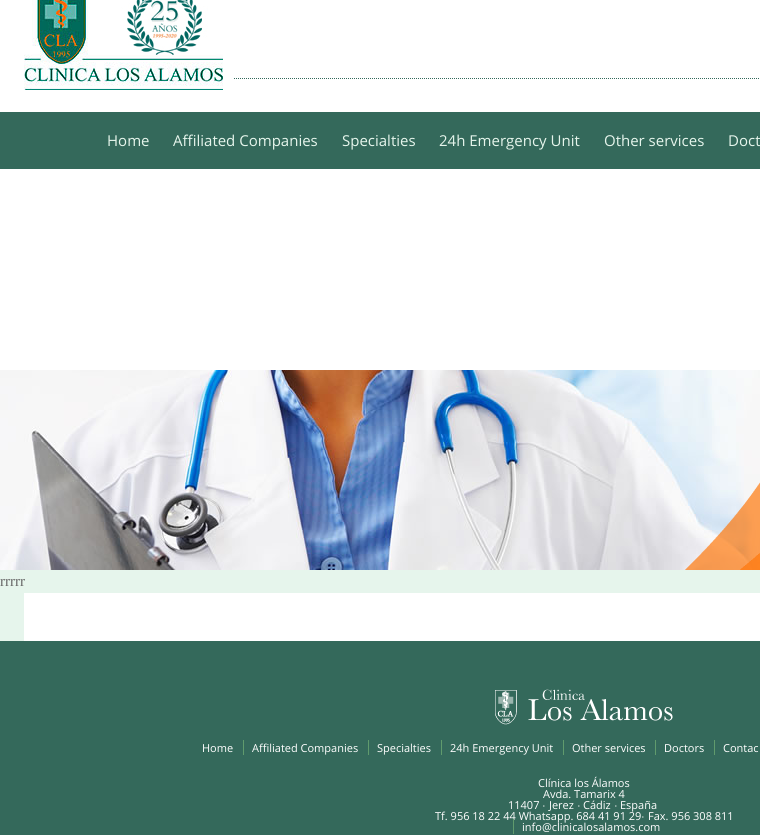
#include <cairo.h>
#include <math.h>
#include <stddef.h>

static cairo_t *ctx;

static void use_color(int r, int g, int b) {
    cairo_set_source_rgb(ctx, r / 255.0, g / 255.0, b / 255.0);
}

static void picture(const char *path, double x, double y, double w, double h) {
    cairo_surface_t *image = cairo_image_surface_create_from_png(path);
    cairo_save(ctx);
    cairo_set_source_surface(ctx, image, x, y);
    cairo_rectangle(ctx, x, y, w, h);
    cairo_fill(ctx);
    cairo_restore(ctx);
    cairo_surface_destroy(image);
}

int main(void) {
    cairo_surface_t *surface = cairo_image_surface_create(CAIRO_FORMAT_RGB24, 760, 835);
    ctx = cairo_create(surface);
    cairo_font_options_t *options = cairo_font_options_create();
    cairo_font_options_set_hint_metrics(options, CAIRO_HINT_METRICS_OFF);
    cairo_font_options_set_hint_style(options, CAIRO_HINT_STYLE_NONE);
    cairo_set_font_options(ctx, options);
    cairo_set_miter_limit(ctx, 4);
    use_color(255, 255, 255);
    cairo_paint(ctx);
    picture("img1.png", 24, 0, 199, 90);
    cairo_new_path(ctx);
    cairo_move_to(ctx, 234, 78.5);
    cairo_line_to(ctx, 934, 78.5);
    use_color(52, 105, 91);
    cairo_set_line_width(ctx, 1);
    cairo_set_dash(ctx, (double[]){1, 1}, 2, 0);
    cairo_stroke(ctx);
    cairo_rectangle(ctx, 0, 112, 760, 57);
    cairo_fill(ctx);
    cairo_select_font_face(ctx, "Open Sans", CAIRO_FONT_SLANT_NORMAL, CAIRO_FONT_WEIGHT_NORMAL);
    cairo_set_font_size(ctx, 15);
    use_color(230, 245, 236);
    cairo_move_to(ctx, 107, 146);
    cairo_show_text(ctx, "Home");
    cairo_move_to(ctx, 173, 146);
    cairo_show_text(ctx, "Affiliated Companies");
    cairo_move_to(ctx, 342, 146);
    cairo_show_text(ctx, "Specialties");
    cairo_move_to(ctx, 439, 146);
    cairo_show_text(ctx, "24h Emergency Unit");
    cairo_move_to(ctx, 604, 146);
    cairo_show_text(ctx, "Other services");
    cairo_move_to(ctx, 728, 146);
    cairo_show_text(ctx, "Doct");
    cairo_rectangle(ctx, 0, 570, 760, 71);
    cairo_fill(ctx);
    picture("img2.png", 0, 370, 760, 200);
    picture("img3.png", 685, 482, 75, 88);
    cairo_select_font_face(ctx, "Liberation Serif", CAIRO_FONT_SLANT_NORMAL, CAIRO_FONT_WEIGHT_NORMAL);
    use_color(102, 102, 102);
    cairo_move_to(ctx, 0, 586);
    cairo_show_text(ctx, "rrrrr");
    use_color(255, 255, 255);
    cairo_rectangle(ctx, 24, 593, 736, 48);
    cairo_fill(ctx);
    use_color(52, 105, 91);
    cairo_rectangle(ctx, 0, 641, 760, 194);
    cairo_fill(ctx);
    picture("img4.png", 495, 689, 178, 36);
    cairo_select_font_face(ctx, "Open Sans", CAIRO_FONT_SLANT_NORMAL, CAIRO_FONT_WEIGHT_NORMAL);
    cairo_set_font_size(ctx, 11);
    use_color(255, 255, 255);
    cairo_move_to(ctx, 202, 752);
    cairo_show_text(ctx, "Home");
    cairo_move_to(ctx, 252, 752);
    cairo_show_text(ctx, "Affiliated Companies");
    use_color(96, 155, 109);
    cairo_rectangle(ctx, 243, 740, 1, 15);
    cairo_fill(ctx);
    use_color(255, 255, 255);
    cairo_move_to(ctx, 377, 752);
    cairo_show_text(ctx, "Specialties");
    use_color(96, 155, 109);
    cairo_rectangle(ctx, 368, 740, 1, 15);
    cairo_fill(ctx);
    use_color(255, 255, 255);
    cairo_move_to(ctx, 450, 752);
    cairo_show_text(ctx, "24h Emergency Unit");
    use_color(96, 155, 109);
    cairo_rectangle(ctx, 441, 740, 1, 15);
    cairo_fill(ctx);
    use_color(255, 255, 255);
    cairo_move_to(ctx, 572, 752);
    cairo_show_text(ctx, "Other services");
    use_color(96, 155, 109);
    cairo_rectangle(ctx, 563, 740, 1, 15);
    cairo_fill(ctx);
    use_color(255, 255, 255);
    cairo_move_to(ctx, 664, 752);
    cairo_show_text(ctx, "Doctors");
    use_color(96, 155, 109);
    cairo_rectangle(ctx, 655, 740, 1, 15);
    cairo_fill(ctx);
    use_color(255, 255, 255);
    cairo_move_to(ctx, 723, 752);
    cairo_show_text(ctx, "Contac");
    use_color(96, 155, 109);
    cairo_rectangle(ctx, 714, 740, 1, 15);
    cairo_fill(ctx);
    use_color(255, 255, 255);
    cairo_move_to(ctx, 538, 787);
    cairo_show_text(ctx, "Clínica los Álamos");
    cairo_move_to(ctx, 543, 798);
    cairo_show_text(ctx, "Avda. Tamarix 4");
    cairo_move_to(ctx, 508, 809);
    cairo_show_text(ctx, "11407");
    cairo_select_font_face(ctx, "Liberation Sans", CAIRO_FONT_SLANT_NORMAL, CAIRO_FONT_WEIGHT_NORMAL);
    cairo_move_to(ctx, 542, 809);
    cairo_show_text(ctx, "·");
    cairo_select_font_face(ctx, "Open Sans", CAIRO_FONT_SLANT_NORMAL, CAIRO_FONT_WEIGHT_NORMAL);
    cairo_move_to(ctx, 549, 809);
    cairo_show_text(ctx, "Jerez");
    cairo_select_font_face(ctx, "Liberation Sans", CAIRO_FONT_SLANT_NORMAL, CAIRO_FONT_WEIGHT_NORMAL);
    cairo_move_to(ctx, 577, 809);
    cairo_show_text(ctx, "·");
    cairo_select_font_face(ctx, "Open Sans", CAIRO_FONT_SLANT_NORMAL, CAIRO_FONT_WEIGHT_NORMAL);
    cairo_move_to(ctx, 583, 809);
    cairo_show_text(ctx, "Cádiz");
    cairo_select_font_face(ctx, "Liberation Sans", CAIRO_FONT_SLANT_NORMAL, CAIRO_FONT_WEIGHT_NORMAL);
    cairo_move_to(ctx, 614, 809);
    cairo_show_text(ctx, "·");
    cairo_select_font_face(ctx, "Open Sans", CAIRO_FONT_SLANT_NORMAL, CAIRO_FONT_WEIGHT_NORMAL);
    cairo_move_to(ctx, 620, 809);
    cairo_show_text(ctx, "España");
    cairo_move_to(ctx, 435, 820);
    cairo_show_text(ctx, "Tf. 956 18 22 44 Whatsapp. 684 41 91 29");
    cairo_select_font_face(ctx, "Liberation Sans", CAIRO_FONT_SLANT_NORMAL, CAIRO_FONT_WEIGHT_NORMAL);
    cairo_move_to(ctx, 641, 820);
    cairo_show_text(ctx, "·");
    cairo_select_font_face(ctx, "Open Sans", CAIRO_FONT_SLANT_NORMAL, CAIRO_FONT_WEIGHT_NORMAL);
    cairo_move_to(ctx, 648, 820);
    cairo_show_text(ctx, "Fax. 956 308 811");
    cairo_move_to(ctx, 522, 831);
    cairo_show_text(ctx, "info@clinicalosalamos.com");
    use_color(96, 155, 109);
    cairo_rectangle(ctx, 513, 819, 1, 15);
    cairo_fill(ctx);
    cairo_surface_write_to_png(surface, "result.png");
    cairo_font_options_destroy(options);
    cairo_destroy(ctx);
    cairo_surface_destroy(surface);
    return 0;
}
